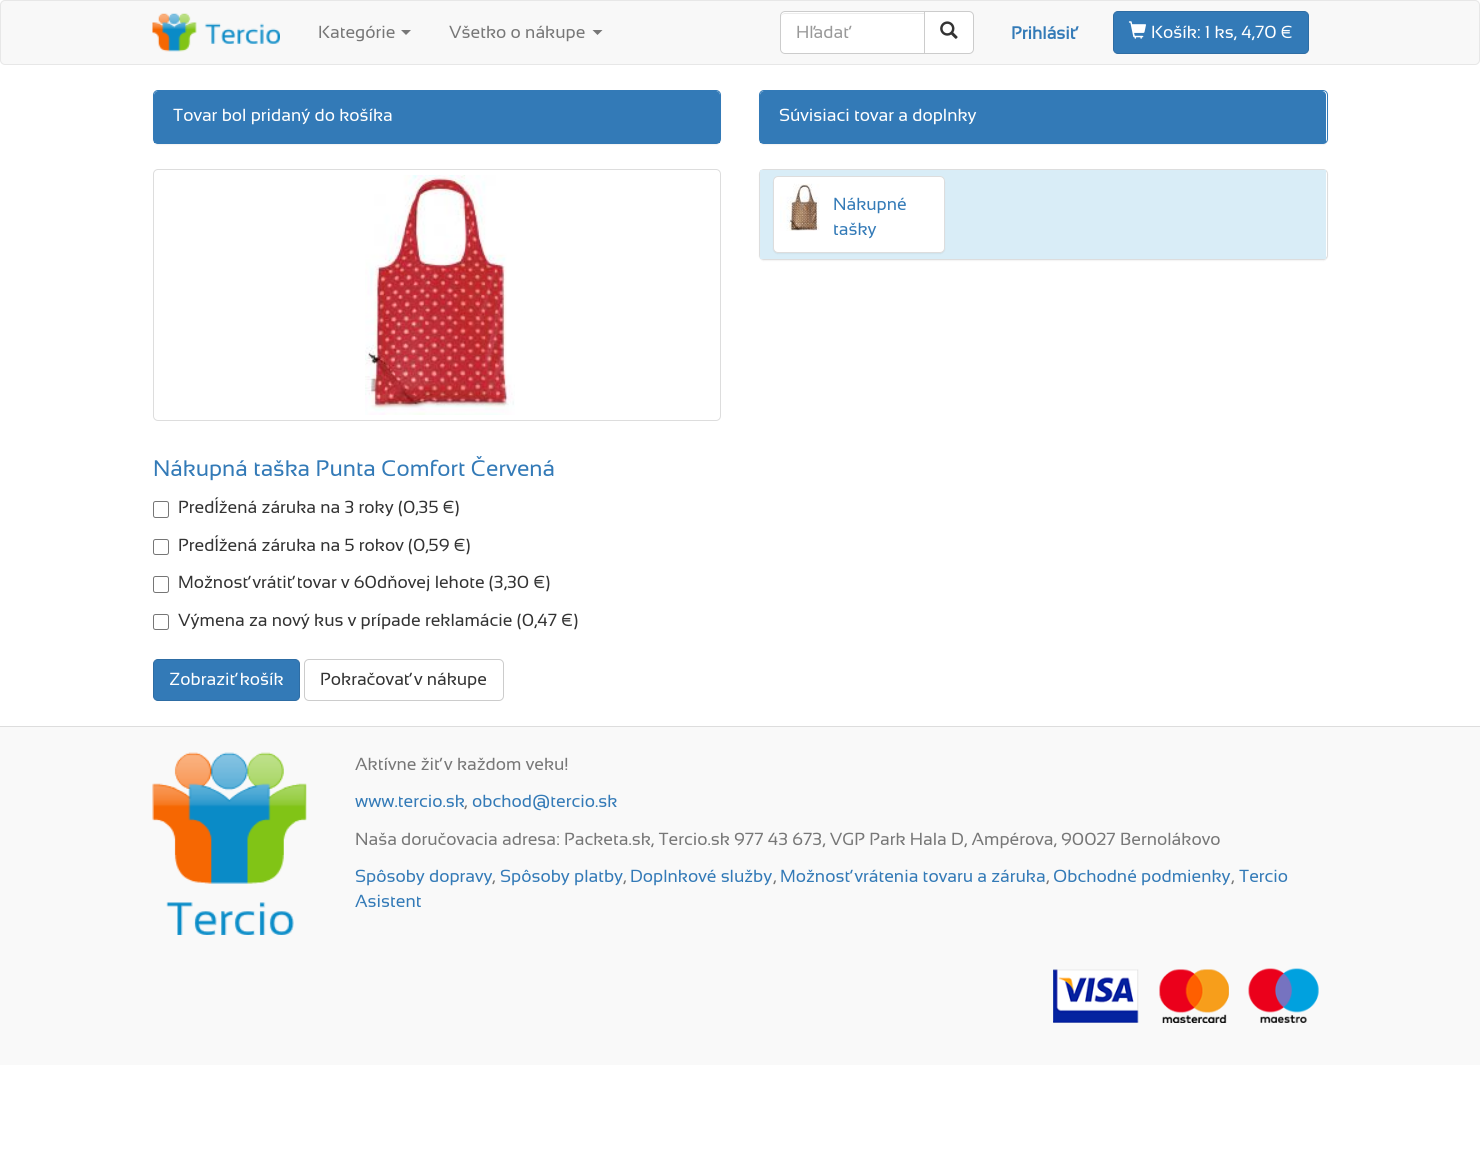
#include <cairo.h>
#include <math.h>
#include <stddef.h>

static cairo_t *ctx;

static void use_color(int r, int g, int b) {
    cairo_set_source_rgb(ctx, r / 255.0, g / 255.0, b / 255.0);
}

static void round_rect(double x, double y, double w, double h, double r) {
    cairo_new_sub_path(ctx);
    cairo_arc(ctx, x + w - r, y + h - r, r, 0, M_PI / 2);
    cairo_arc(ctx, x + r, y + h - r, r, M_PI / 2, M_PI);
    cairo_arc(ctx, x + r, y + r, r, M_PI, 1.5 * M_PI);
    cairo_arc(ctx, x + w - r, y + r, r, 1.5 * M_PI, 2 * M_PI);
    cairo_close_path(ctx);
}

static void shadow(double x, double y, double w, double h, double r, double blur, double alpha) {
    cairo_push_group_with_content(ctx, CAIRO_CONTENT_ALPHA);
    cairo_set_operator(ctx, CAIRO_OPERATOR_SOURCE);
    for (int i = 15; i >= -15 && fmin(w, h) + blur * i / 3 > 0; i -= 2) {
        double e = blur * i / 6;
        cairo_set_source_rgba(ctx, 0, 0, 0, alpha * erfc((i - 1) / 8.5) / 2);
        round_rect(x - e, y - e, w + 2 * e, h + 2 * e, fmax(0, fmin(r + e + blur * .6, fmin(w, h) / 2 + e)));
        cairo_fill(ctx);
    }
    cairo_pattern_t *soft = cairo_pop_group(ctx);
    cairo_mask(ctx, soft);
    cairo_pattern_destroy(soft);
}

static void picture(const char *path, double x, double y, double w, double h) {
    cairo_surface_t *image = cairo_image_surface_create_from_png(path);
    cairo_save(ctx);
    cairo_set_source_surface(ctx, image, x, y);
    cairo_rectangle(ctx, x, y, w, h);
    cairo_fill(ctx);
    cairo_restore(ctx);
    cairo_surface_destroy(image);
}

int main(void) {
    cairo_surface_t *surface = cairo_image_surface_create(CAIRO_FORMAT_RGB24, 1480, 1161);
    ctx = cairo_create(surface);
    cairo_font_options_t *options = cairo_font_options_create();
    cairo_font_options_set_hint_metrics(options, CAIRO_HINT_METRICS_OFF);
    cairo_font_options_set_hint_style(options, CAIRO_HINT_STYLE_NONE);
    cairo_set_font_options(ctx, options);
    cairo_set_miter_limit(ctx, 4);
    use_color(255, 255, 255);
    cairo_paint(ctx);
    use_color(248, 248, 248);
    round_rect(0.5, 0.5, 1479, 64, 4.5);
    cairo_fill_preserve(ctx);
    use_color(231, 231, 231);
    cairo_set_line_width(ctx, 1);
    cairo_stroke(ctx);
    picture("img1.png", 152, 13, 128, 39);
    cairo_select_font_face(ctx, "Sansation", CAIRO_FONT_SLANT_NORMAL, CAIRO_FONT_WEIGHT_NORMAL);
    cairo_set_font_size(ctx, 17.5);
    use_color(119, 119, 119);
    cairo_move_to(ctx, 318, 38);
    cairo_show_text(ctx, "Kategórie");
    cairo_new_path(ctx);
    cairo_move_to(ctx, 401, 30);
    cairo_line_to(ctx, 411, 30);
    cairo_line_to(ctx, 406, 35);
    cairo_close_path(ctx);
    cairo_fill(ctx);
    cairo_move_to(ctx, 449, 38);
    cairo_show_text(ctx, "Všetko o nákupe");
    cairo_new_path(ctx);
    cairo_move_to(ctx, 592.5, 30);
    cairo_line_to(ctx, 602.5, 30);
    cairo_line_to(ctx, 597.5, 35);
    cairo_close_path(ctx);
    cairo_fill(ctx);
    use_color(255, 255, 255);
    cairo_new_path(ctx);
    cairo_move_to(ctx, 785, 11);
    cairo_line_to(ctx, 925, 11);
    cairo_line_to(ctx, 925, 54);
    cairo_line_to(ctx, 785, 54);
    cairo_curve_to(ctx, 782, 54, 780, 52, 780, 49);
    cairo_line_to(ctx, 780, 16);
    cairo_curve_to(ctx, 780, 13, 782, 11, 785, 11);
    cairo_close_path(ctx);
    cairo_fill(ctx);
    use_color(236, 236, 236);
    cairo_new_path(ctx);
    cairo_move_to(ctx, 785, 14);
    cairo_line_to(ctx, 924, 14);
    cairo_line_to(ctx, 924, 13);
    cairo_line_to(ctx, 785, 13);
    cairo_curve_to(ctx, 783, 13, 781, 15, 781, 17);
    cairo_line_to(ctx, 781, 18);
    cairo_curve_to(ctx, 781, 15, 783, 14, 785, 14);
    cairo_close_path(ctx);
    cairo_fill(ctx);
    cairo_new_path(ctx);
    cairo_move_to(ctx, 785, 11.5);
    cairo_line_to(ctx, 924.5, 11.5);
    cairo_line_to(ctx, 924.5, 53.5);
    cairo_line_to(ctx, 785, 53.5);
    cairo_curve_to(ctx, 782.5, 53.5, 780.5, 51.5, 780.5, 49);
    cairo_line_to(ctx, 780.5, 16);
    cairo_curve_to(ctx, 780.5, 13.5, 782.5, 11.5, 785, 11.5);
    cairo_close_path(ctx);
    use_color(204, 204, 204);
    cairo_stroke(ctx);
    use_color(153, 153, 153);
    cairo_move_to(ctx, 796, 38);
    cairo_show_text(ctx, "Hľadať");
    use_color(255, 255, 255);
    cairo_new_path(ctx);
    cairo_move_to(ctx, 924.5, 11.5);
    cairo_line_to(ctx, 969, 11.5);
    cairo_curve_to(ctx, 971.5, 11.5, 973.5, 13.5, 973.5, 16);
    cairo_line_to(ctx, 973.5, 49);
    cairo_curve_to(ctx, 973.5, 51.5, 971.5, 53.5, 969, 53.5);
    cairo_line_to(ctx, 924.5, 53.5);
    cairo_close_path(ctx);
    cairo_fill_preserve(ctx);
    use_color(204, 204, 204);
    cairo_stroke(ctx);
    picture("img2.png", 940, 21, 18, 18);
    cairo_select_font_face(ctx, "Sansation", CAIRO_FONT_SLANT_NORMAL, CAIRO_FONT_WEIGHT_BOLD);
    use_color(51, 122, 183);
    cairo_move_to(ctx, 1011, 39);
    cairo_show_text(ctx, "Prihlásiť");
    round_rect(1113.5, 11.5, 195, 42, 4.5);
    cairo_fill_preserve(ctx);
    use_color(46, 109, 164);
    cairo_stroke(ctx);
    picture("img3.png", 1128, 21, 18, 18);
    cairo_select_font_face(ctx, "Sansation", CAIRO_FONT_SLANT_NORMAL, CAIRO_FONT_WEIGHT_NORMAL);
    use_color(255, 255, 255);
    cairo_move_to(ctx, 1151, 38);
    cairo_show_text(ctx, "Košík: 1 ks, 4,70 €");
    use_color(0, 0, 0);
    shadow(153, 91, 568, 54, 5, 0.5, 0.05);
    round_rect(153.5, 90.5, 567, 53, 4.5);
    use_color(51, 122, 183);
    cairo_stroke(ctx);
    cairo_new_path(ctx);
    cairo_move_to(ctx, 158, 91);
    cairo_line_to(ctx, 716, 91);
    cairo_curve_to(ctx, 718, 91, 720, 93, 720, 95);
    cairo_line_to(ctx, 720, 143);
    cairo_line_to(ctx, 154, 143);
    cairo_line_to(ctx, 154, 95);
    cairo_curve_to(ctx, 154, 93, 156, 91, 158, 91);
    cairo_close_path(ctx);
    cairo_fill(ctx);
    use_color(255, 255, 255);
    cairo_move_to(ctx, 173, 121);
    cairo_show_text(ctx, "Tovar bol pridaný do košíka");
    round_rect(153.5, 169.5, 567, 251, 4.5);
    use_color(221, 221, 221);
    cairo_stroke(ctx);
    picture("img4.png", 365, 175, 150, 240);
    cairo_set_font_size(ctx, 22.5);
    use_color(51, 122, 183);
    cairo_move_to(ctx, 153, 476);
    cairo_show_text(ctx, "Nákupná taška Punta Comfort Červená");
    round_rect(153.5, 501.5, 15, 16, 2);
    use_color(118, 118, 118);
    cairo_stroke(ctx);
    cairo_set_font_size(ctx, 17.5);
    use_color(51, 51, 51);
    cairo_move_to(ctx, 178, 513);
    cairo_show_text(ctx, "Predĺžená záruka na 3 roky (0,35 €)");
    round_rect(153.5, 539.5, 15, 15, 2);
    use_color(118, 118, 118);
    cairo_stroke(ctx);
    use_color(51, 51, 51);
    cairo_move_to(ctx, 178, 551);
    cairo_show_text(ctx, "Predĺžená záruka na 5 rokov (0,59 €)");
    round_rect(153.5, 576.5, 15, 16, 2);
    use_color(118, 118, 118);
    cairo_stroke(ctx);
    use_color(51, 51, 51);
    cairo_move_to(ctx, 178, 588);
    cairo_show_text(ctx, "Možnosť vrátiť tovar v 60dňovej lehote (3,30 €)");
    round_rect(153.5, 614.5, 15, 15, 2);
    use_color(118, 118, 118);
    cairo_stroke(ctx);
    use_color(51, 51, 51);
    cairo_move_to(ctx, 178, 626);
    cairo_show_text(ctx, "Výmena za nový kus v prípade reklamácie (0,47 €)");
    use_color(51, 122, 183);
    round_rect(153.5, 659.5, 146, 41, 4.5);
    cairo_fill_preserve(ctx);
    use_color(46, 109, 164);
    cairo_stroke(ctx);
    use_color(255, 255, 255);
    cairo_move_to(ctx, 169, 685);
    cairo_show_text(ctx, "Zobraziť košík");
    round_rect(304.5, 659.5, 199, 41, 4.5);
    use_color(204, 204, 204);
    cairo_stroke(ctx);
    use_color(51, 51, 51);
    cairo_move_to(ctx, 320, 685);
    cairo_show_text(ctx, "Pokračovať v nákupe");
    use_color(0, 0, 0);
    shadow(759, 91, 569, 54, 5, 0.5, 0.05);
    use_color(255, 255, 255);
    round_rect(759.5, 90.5, 568, 53, 4.5);
    cairo_fill_preserve(ctx);
    use_color(51, 122, 183);
    cairo_stroke(ctx);
    cairo_new_path(ctx);
    cairo_move_to(ctx, 764, 91);
    cairo_line_to(ctx, 1322, 91);
    cairo_curve_to(ctx, 1324, 91, 1326, 93, 1326, 95);
    cairo_line_to(ctx, 1326, 143);
    cairo_line_to(ctx, 760, 143);
    cairo_line_to(ctx, 760, 95);
    cairo_curve_to(ctx, 760, 93, 762, 91, 764, 91);
    cairo_close_path(ctx);
    cairo_fill(ctx);
    use_color(255, 255, 255);
    cairo_move_to(ctx, 779, 121);
    cairo_show_text(ctx, "Súvisiaci tovar a doplnky");
    use_color(0, 0, 0);
    shadow(759, 170, 569, 91, 5, 0.5, 0.05);
    use_color(255, 255, 255);
    round_rect(759.5, 169.5, 568, 90, 4.5);
    cairo_fill_preserve(ctx);
    use_color(221, 221, 221);
    cairo_stroke(ctx);
    use_color(217, 237, 247);
    cairo_rectangle(ctx, 760, 170, 566, 89);
    cairo_fill(ctx);
    use_color(0, 0, 0);
    shadow(773, 178, 172, 76, 5, 0.5, 0.05);
    use_color(255, 255, 255);
    round_rect(773.5, 176.5, 171, 76, 4.5);
    cairo_fill_preserve(ctx);
    use_color(221, 221, 221);
    cairo_stroke(ctx);
    picture("img5.png", 780, 183, 40, 48);
    use_color(51, 122, 183);
    cairo_move_to(ctx, 833, 210);
    cairo_show_text(ctx, "Nákupné");
    cairo_move_to(ctx, 833, 235);
    cairo_show_text(ctx, "tašky");
    use_color(249, 249, 249);
    cairo_rectangle(ctx, 0, 727, 1480, 338);
    cairo_fill(ctx);
    use_color(221, 221, 221);
    cairo_rectangle(ctx, 0, 726, 1480, 1);
    cairo_fill(ctx);
    picture("img6.png", 152, 752, 155, 183);
    use_color(119, 119, 119);
    cairo_move_to(ctx, 355, 770);
    cairo_show_text(ctx, "Aktívne žiť v každom veku!");
    use_color(51, 122, 183);
    cairo_move_to(ctx, 355, 807);
    cairo_show_text(ctx, "www.tercio.sk");
    use_color(119, 119, 119);
    cairo_move_to(ctx, 464, 807);
    cairo_show_text(ctx, ",");
    use_color(51, 122, 183);
    cairo_move_to(ctx, 472, 807);
    cairo_show_text(ctx, "obchod@tercio.sk");
    use_color(119, 119, 119);
    cairo_move_to(ctx, 355, 845);
    cairo_show_text(ctx, "Naša doručovacia adresa: Packeta.sk, Tercio.sk 977 43 673, VGP Park Hala D, Ampérova, 90027 Bernolákovo");
    use_color(51, 122, 183);
    cairo_move_to(ctx, 355, 882);
    cairo_show_text(ctx, "Spôsoby dopravy");
    cairo_move_to(ctx, 500, 882);
    cairo_show_text(ctx, "Spôsoby platby");
    cairo_move_to(ctx, 630, 882);
    cairo_show_text(ctx, "Doplnkové služby");
    cairo_move_to(ctx, 780, 882);
    cairo_show_text(ctx, "Možnosť vrátenia tovaru a záruka");
    cairo_move_to(ctx, 1053, 882);
    cairo_show_text(ctx, "Obchodné podmienky");
    cairo_move_to(ctx, 1239, 882);
    cairo_show_text(ctx, "Tercio");
    use_color(119, 119, 119);
    cairo_move_to(ctx, 492, 882);
    cairo_show_text(ctx, ",");
    cairo_move_to(ctx, 623, 882);
    cairo_show_text(ctx, ",");
    cairo_move_to(ctx, 773, 882);
    cairo_show_text(ctx, ",");
    cairo_move_to(ctx, 1046, 882);
    cairo_show_text(ctx, ",");
    cairo_move_to(ctx, 1231, 882);
    cairo_show_text(ctx, ",");
    use_color(51, 122, 183);
    cairo_move_to(ctx, 355, 907);
    cairo_show_text(ctx, "Asistent");
    picture("img7.png", 1053, 969, 86, 54);
    picture("img8.png", 1159, 969, 70, 54);
    picture("img9.png", 1248, 968, 71, 55);
    cairo_surface_write_to_png(surface, "result.png");
    cairo_font_options_destroy(options);
    cairo_destroy(ctx);
    cairo_surface_destroy(surface);
    return 0;
}
